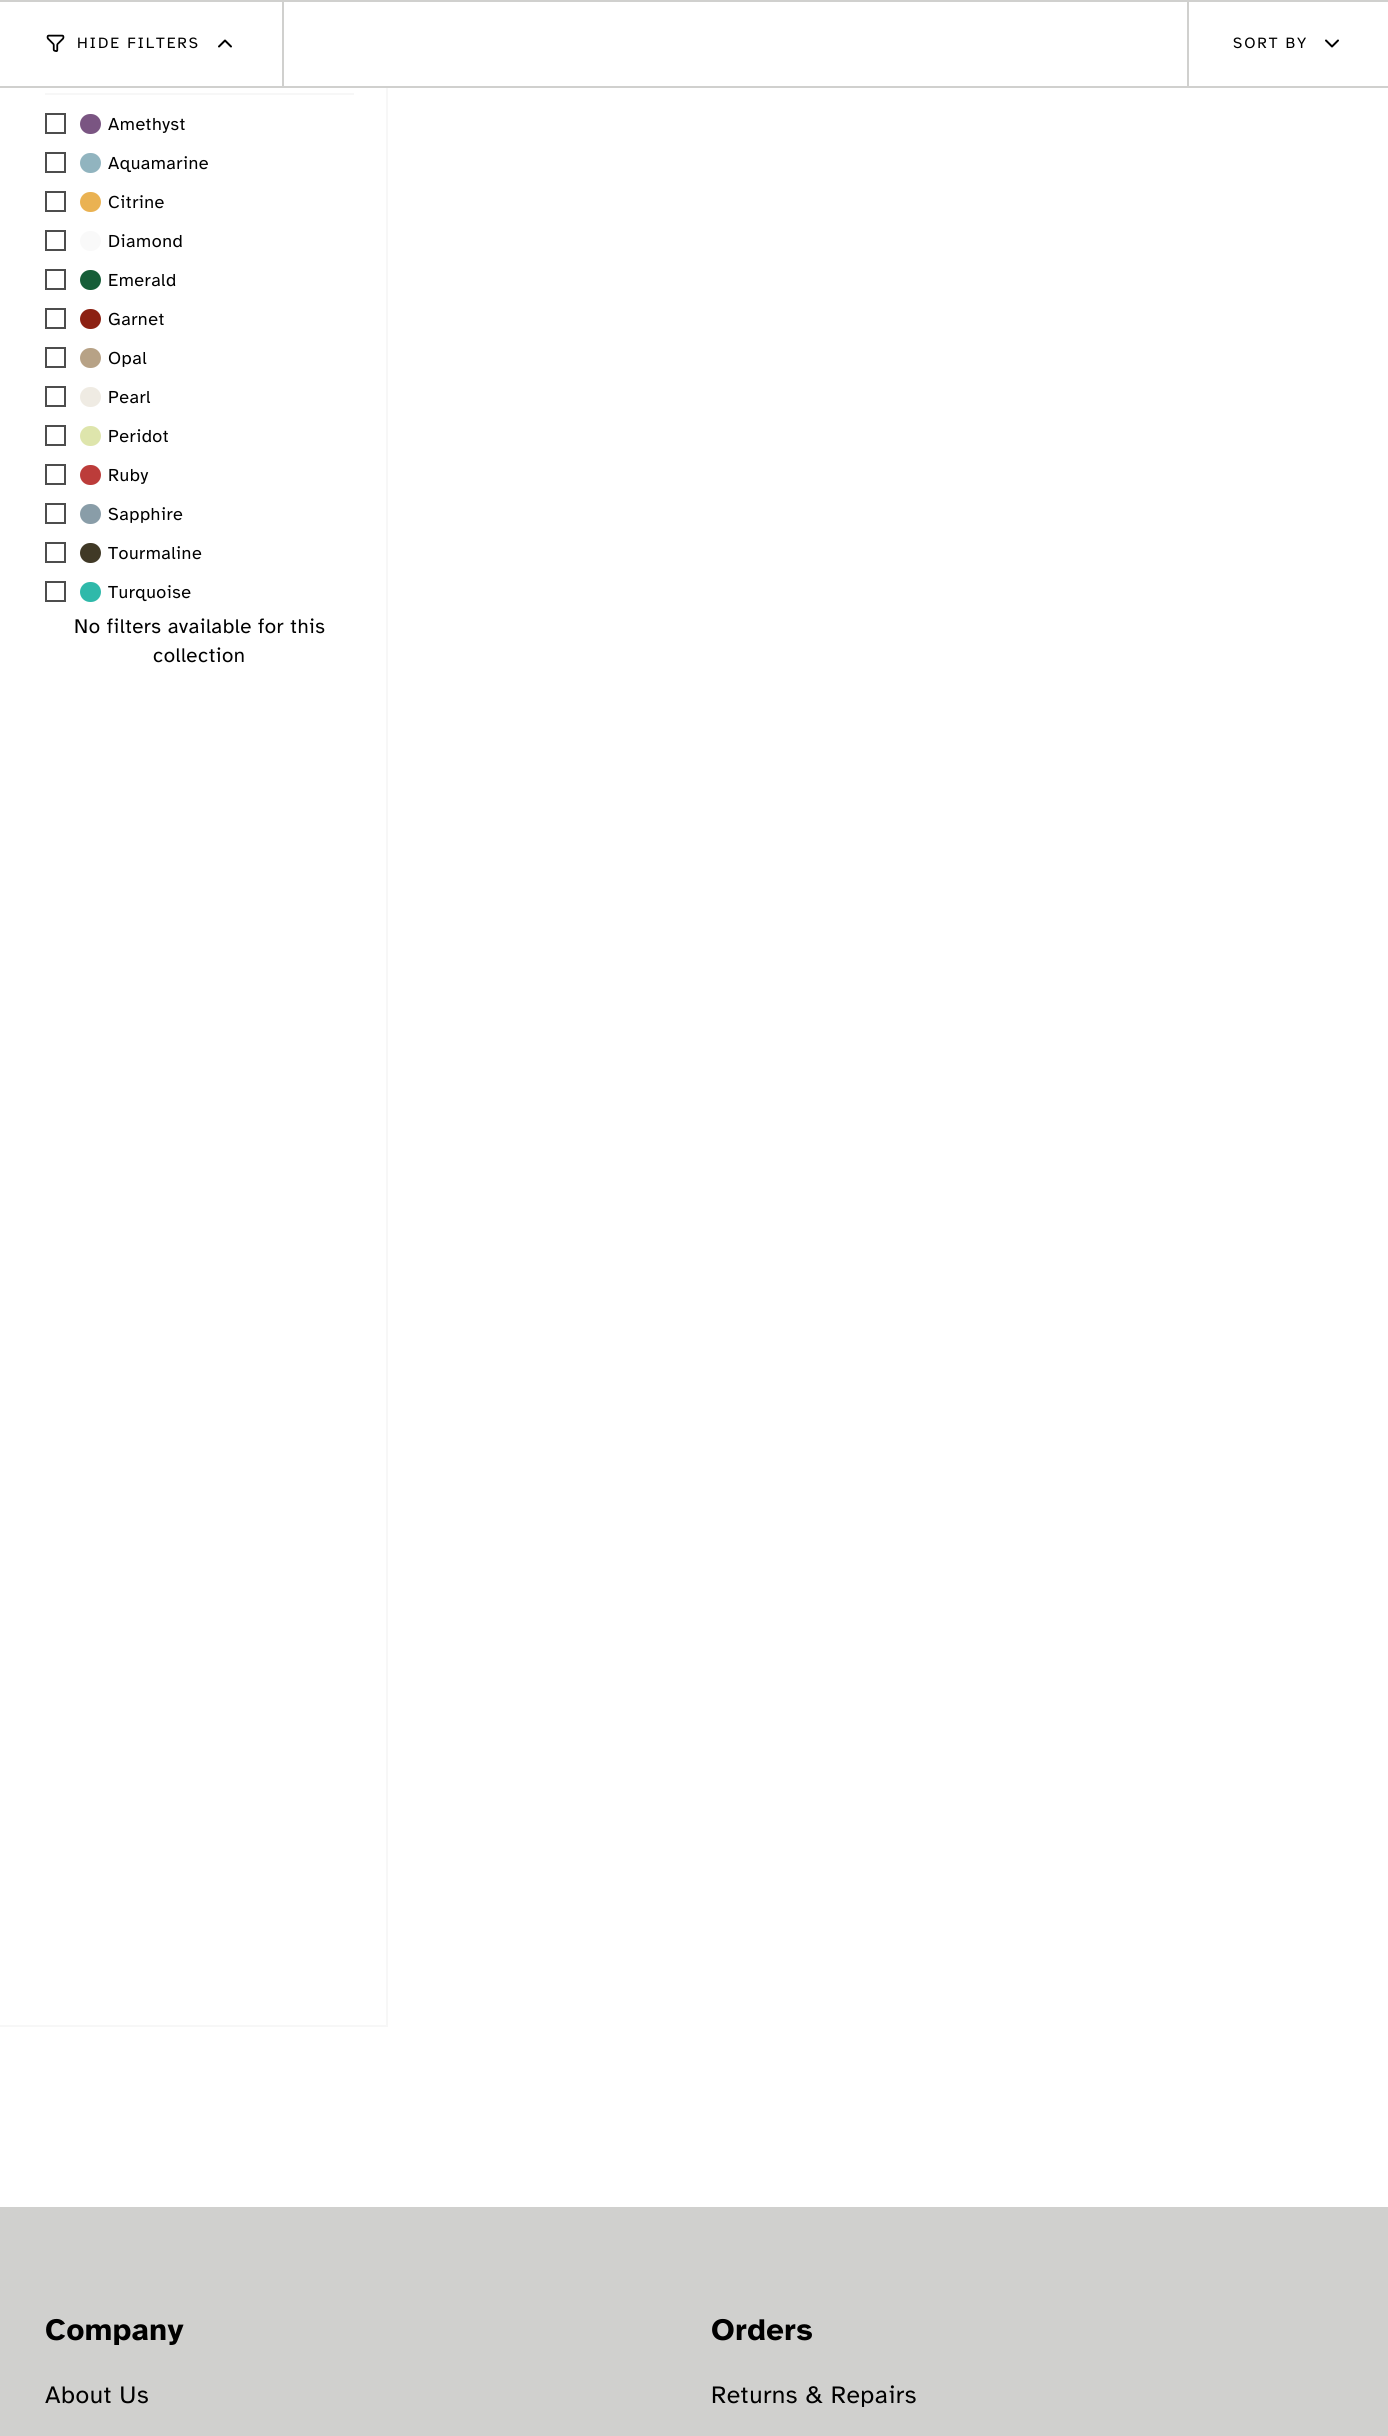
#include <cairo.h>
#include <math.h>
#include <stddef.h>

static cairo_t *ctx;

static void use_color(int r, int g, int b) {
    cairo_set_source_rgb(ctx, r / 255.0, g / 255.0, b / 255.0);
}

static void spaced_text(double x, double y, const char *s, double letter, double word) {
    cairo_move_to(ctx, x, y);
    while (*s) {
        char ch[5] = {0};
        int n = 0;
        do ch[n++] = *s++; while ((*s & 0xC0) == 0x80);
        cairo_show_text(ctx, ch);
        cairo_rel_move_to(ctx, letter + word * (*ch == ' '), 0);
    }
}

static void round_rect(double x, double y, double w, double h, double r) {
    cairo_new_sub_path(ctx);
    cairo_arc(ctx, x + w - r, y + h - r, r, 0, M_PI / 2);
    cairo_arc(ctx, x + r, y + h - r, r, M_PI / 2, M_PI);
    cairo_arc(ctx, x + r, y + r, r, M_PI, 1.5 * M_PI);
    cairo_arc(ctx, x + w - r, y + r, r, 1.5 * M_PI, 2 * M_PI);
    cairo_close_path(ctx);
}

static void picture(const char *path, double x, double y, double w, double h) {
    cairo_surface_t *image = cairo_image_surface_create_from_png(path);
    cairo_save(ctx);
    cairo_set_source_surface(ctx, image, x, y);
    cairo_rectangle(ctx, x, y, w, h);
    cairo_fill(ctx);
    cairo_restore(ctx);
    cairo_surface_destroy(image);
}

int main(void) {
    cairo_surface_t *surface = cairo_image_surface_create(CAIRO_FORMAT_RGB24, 1388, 2436);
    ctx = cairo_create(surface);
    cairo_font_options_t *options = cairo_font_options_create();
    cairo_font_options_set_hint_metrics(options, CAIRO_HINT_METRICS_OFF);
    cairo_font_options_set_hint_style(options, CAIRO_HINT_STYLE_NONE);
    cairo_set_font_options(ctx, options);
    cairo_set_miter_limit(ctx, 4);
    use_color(255, 255, 255);
    cairo_paint(ctx);
    use_color(208, 208, 206);
    cairo_rectangle(ctx, 0, 0, 1388, 2);
    cairo_fill(ctx);
    cairo_rectangle(ctx, 0, 86, 1388, 2);
    cairo_fill(ctx);
    cairo_rectangle(ctx, 282, 2, 2, 84);
    cairo_fill(ctx);
    picture("img1.png", 46, 34, 19, 18);
    cairo_select_font_face(ctx, "Atkinson Hyperlegible", CAIRO_FONT_SLANT_NORMAL, CAIRO_FONT_WEIGHT_NORMAL);
    cairo_set_font_size(ctx, 15.5);
    use_color(0, 0, 0);
    spaced_text(77, 48, "HIDE FILTERS", 1.9, 0);
    cairo_new_path(ctx);
    cairo_move_to(ctx, 219, 46.5);
    cairo_line_to(ctx, 225, 40.5);
    cairo_line_to(ctx, 231, 46.5);
    cairo_set_line_cap(ctx, CAIRO_LINE_CAP_ROUND);
    cairo_set_line_join(ctx, CAIRO_LINE_JOIN_ROUND);
    cairo_stroke(ctx);
    use_color(208, 208, 206);
    cairo_rectangle(ctx, 1187, 2, 2, 84);
    cairo_fill(ctx);
    use_color(0, 0, 0);
    spaced_text(1233, 48, "SORT BY", 1.9, 0);
    cairo_new_path(ctx);
    cairo_move_to(ctx, 1326, 40.5);
    cairo_line_to(ctx, 1332, 46.5);
    cairo_line_to(ctx, 1338, 40.5);
    cairo_stroke(ctx);
    use_color(247, 247, 247);
    cairo_rectangle(ctx, 386, 88, 2, 1939);
    cairo_fill(ctx);
    cairo_rectangle(ctx, 0, 2025, 387, 2);
    cairo_fill(ctx);
    cairo_rectangle(ctx, 45, 93, 309, 2);
    cairo_fill(ctx);
    cairo_rectangle(ctx, 46, 114, 19, 19);
    use_color(77, 77, 77);
    cairo_set_line_cap(ctx, CAIRO_LINE_CAP_BUTT);
    cairo_set_line_join(ctx, CAIRO_LINE_JOIN_MITER);
    cairo_stroke(ctx);
    use_color(122, 85, 130);
    round_rect(80, 114, 21, 20, 10);
    cairo_fill(ctx);
    cairo_set_font_size(ctx, 18);
    use_color(0, 0, 0);
    spaced_text(108, 130, "Amethyst", 0.5, 0);
    cairo_rectangle(ctx, 46, 153, 19, 19);
    use_color(77, 77, 77);
    cairo_stroke(ctx);
    use_color(145, 180, 191);
    round_rect(80, 153, 21, 20, 10);
    cairo_fill(ctx);
    use_color(0, 0, 0);
    spaced_text(108, 169, "Aquamarine", 0.5, 0);
    cairo_rectangle(ctx, 46, 192, 19, 19);
    use_color(77, 77, 77);
    cairo_stroke(ctx);
    use_color(234, 178, 82);
    round_rect(80, 192, 21, 20, 10);
    cairo_fill(ctx);
    use_color(0, 0, 0);
    spaced_text(108, 208, "Citrine", 0.5, 0);
    cairo_rectangle(ctx, 46, 231, 19, 19);
    use_color(77, 77, 77);
    cairo_stroke(ctx);
    use_color(249, 249, 249);
    round_rect(80, 231, 21, 20, 10);
    cairo_fill(ctx);
    use_color(0, 0, 0);
    spaced_text(108, 247, "Diamond", 0.5, 0);
    cairo_rectangle(ctx, 46, 270, 19, 19);
    use_color(77, 77, 77);
    cairo_stroke(ctx);
    use_color(22, 94, 56);
    round_rect(80, 270, 21, 20, 10);
    cairo_fill(ctx);
    use_color(0, 0, 0);
    spaced_text(108, 286, "Emerald", 0.5, 0);
    cairo_rectangle(ctx, 46, 309, 19, 19);
    use_color(77, 77, 77);
    cairo_stroke(ctx);
    use_color(140, 33, 19);
    round_rect(80, 309, 21, 20, 10);
    cairo_fill(ctx);
    use_color(0, 0, 0);
    spaced_text(108, 325, "Garnet", 0.5, 0);
    cairo_rectangle(ctx, 46, 348, 19, 19);
    use_color(77, 77, 77);
    cairo_stroke(ctx);
    use_color(183, 162, 134);
    round_rect(80, 348, 21, 20, 10);
    cairo_fill(ctx);
    use_color(0, 0, 0);
    spaced_text(108, 364, "Opal", 0.5, 0);
    cairo_rectangle(ctx, 46, 387, 19, 19);
    use_color(77, 77, 77);
    cairo_stroke(ctx);
    use_color(239, 235, 227);
    round_rect(80, 387, 21, 20, 10);
    cairo_fill(ctx);
    use_color(0, 0, 0);
    spaced_text(108, 403, "Pearl", 0.5, 0);
    cairo_rectangle(ctx, 46, 426, 19, 19);
    use_color(77, 77, 77);
    cairo_stroke(ctx);
    use_color(222, 229, 172);
    round_rect(80, 426, 21, 20, 10);
    cairo_fill(ctx);
    use_color(0, 0, 0);
    spaced_text(108, 442, "Peridot", 0.5, 0);
    cairo_rectangle(ctx, 46, 465, 19, 19);
    use_color(77, 77, 77);
    cairo_stroke(ctx);
    use_color(188, 60, 58);
    round_rect(80, 465, 21, 20, 10);
    cairo_fill(ctx);
    use_color(0, 0, 0);
    spaced_text(108, 481, "Ruby", 0.5, 0);
    cairo_rectangle(ctx, 46, 504, 19, 19);
    use_color(77, 77, 77);
    cairo_stroke(ctx);
    use_color(137, 157, 168);
    round_rect(80, 504, 21, 20, 10);
    cairo_fill(ctx);
    use_color(0, 0, 0);
    spaced_text(108, 520, "Sapphire", 0.5, 0);
    cairo_rectangle(ctx, 46, 543, 19, 19);
    use_color(77, 77, 77);
    cairo_stroke(ctx);
    use_color(64, 57, 38);
    round_rect(80, 543, 21, 20, 10);
    cairo_fill(ctx);
    use_color(0, 0, 0);
    spaced_text(108, 559, "Tourmaline", 0.5, 0);
    cairo_rectangle(ctx, 46, 582, 19, 19);
    use_color(77, 77, 77);
    cairo_stroke(ctx);
    use_color(47, 185, 170);
    round_rect(80, 582, 21, 20, 10);
    cairo_fill(ctx);
    use_color(0, 0, 0);
    spaced_text(108, 598, "Turquoise", 0.5, 0);
    cairo_set_font_size(ctx, 20.5);
    spaced_text(74, 633, "No filters available for this", 0.5, 0);
    spaced_text(153, 662, "collection", 0.5, 0);
    use_color(208, 208, 206);
    cairo_rectangle(ctx, 0, 2207, 1388, 229);
    cairo_fill(ctx);
    cairo_select_font_face(ctx, "Atkinson Hyperlegible", CAIRO_FONT_SLANT_NORMAL, CAIRO_FONT_WEIGHT_BOLD);
    cairo_set_font_size(ctx, 31);
    use_color(0, 0, 0);
    spaced_text(45, 2340, "Company", 0.5, 0);
    cairo_select_font_face(ctx, "Atkinson Hyperlegible", CAIRO_FONT_SLANT_NORMAL, CAIRO_FONT_WEIGHT_NORMAL);
    cairo_set_font_size(ctx, 24.75);
    spaced_text(45, 2403, "About Us", 0.5, 0);
    cairo_select_font_face(ctx, "Atkinson Hyperlegible", CAIRO_FONT_SLANT_NORMAL, CAIRO_FONT_WEIGHT_BOLD);
    cairo_set_font_size(ctx, 31);
    spaced_text(711, 2340, "Orders", 0.5, 0);
    cairo_select_font_face(ctx, "Atkinson Hyperlegible", CAIRO_FONT_SLANT_NORMAL, CAIRO_FONT_WEIGHT_NORMAL);
    cairo_set_font_size(ctx, 24.75);
    spaced_text(711, 2403, "Returns & Repairs", 0.5, 0);
    cairo_surface_write_to_png(surface, "result.png");
    cairo_font_options_destroy(options);
    cairo_destroy(ctx);
    cairo_surface_destroy(surface);
    return 0;
}
